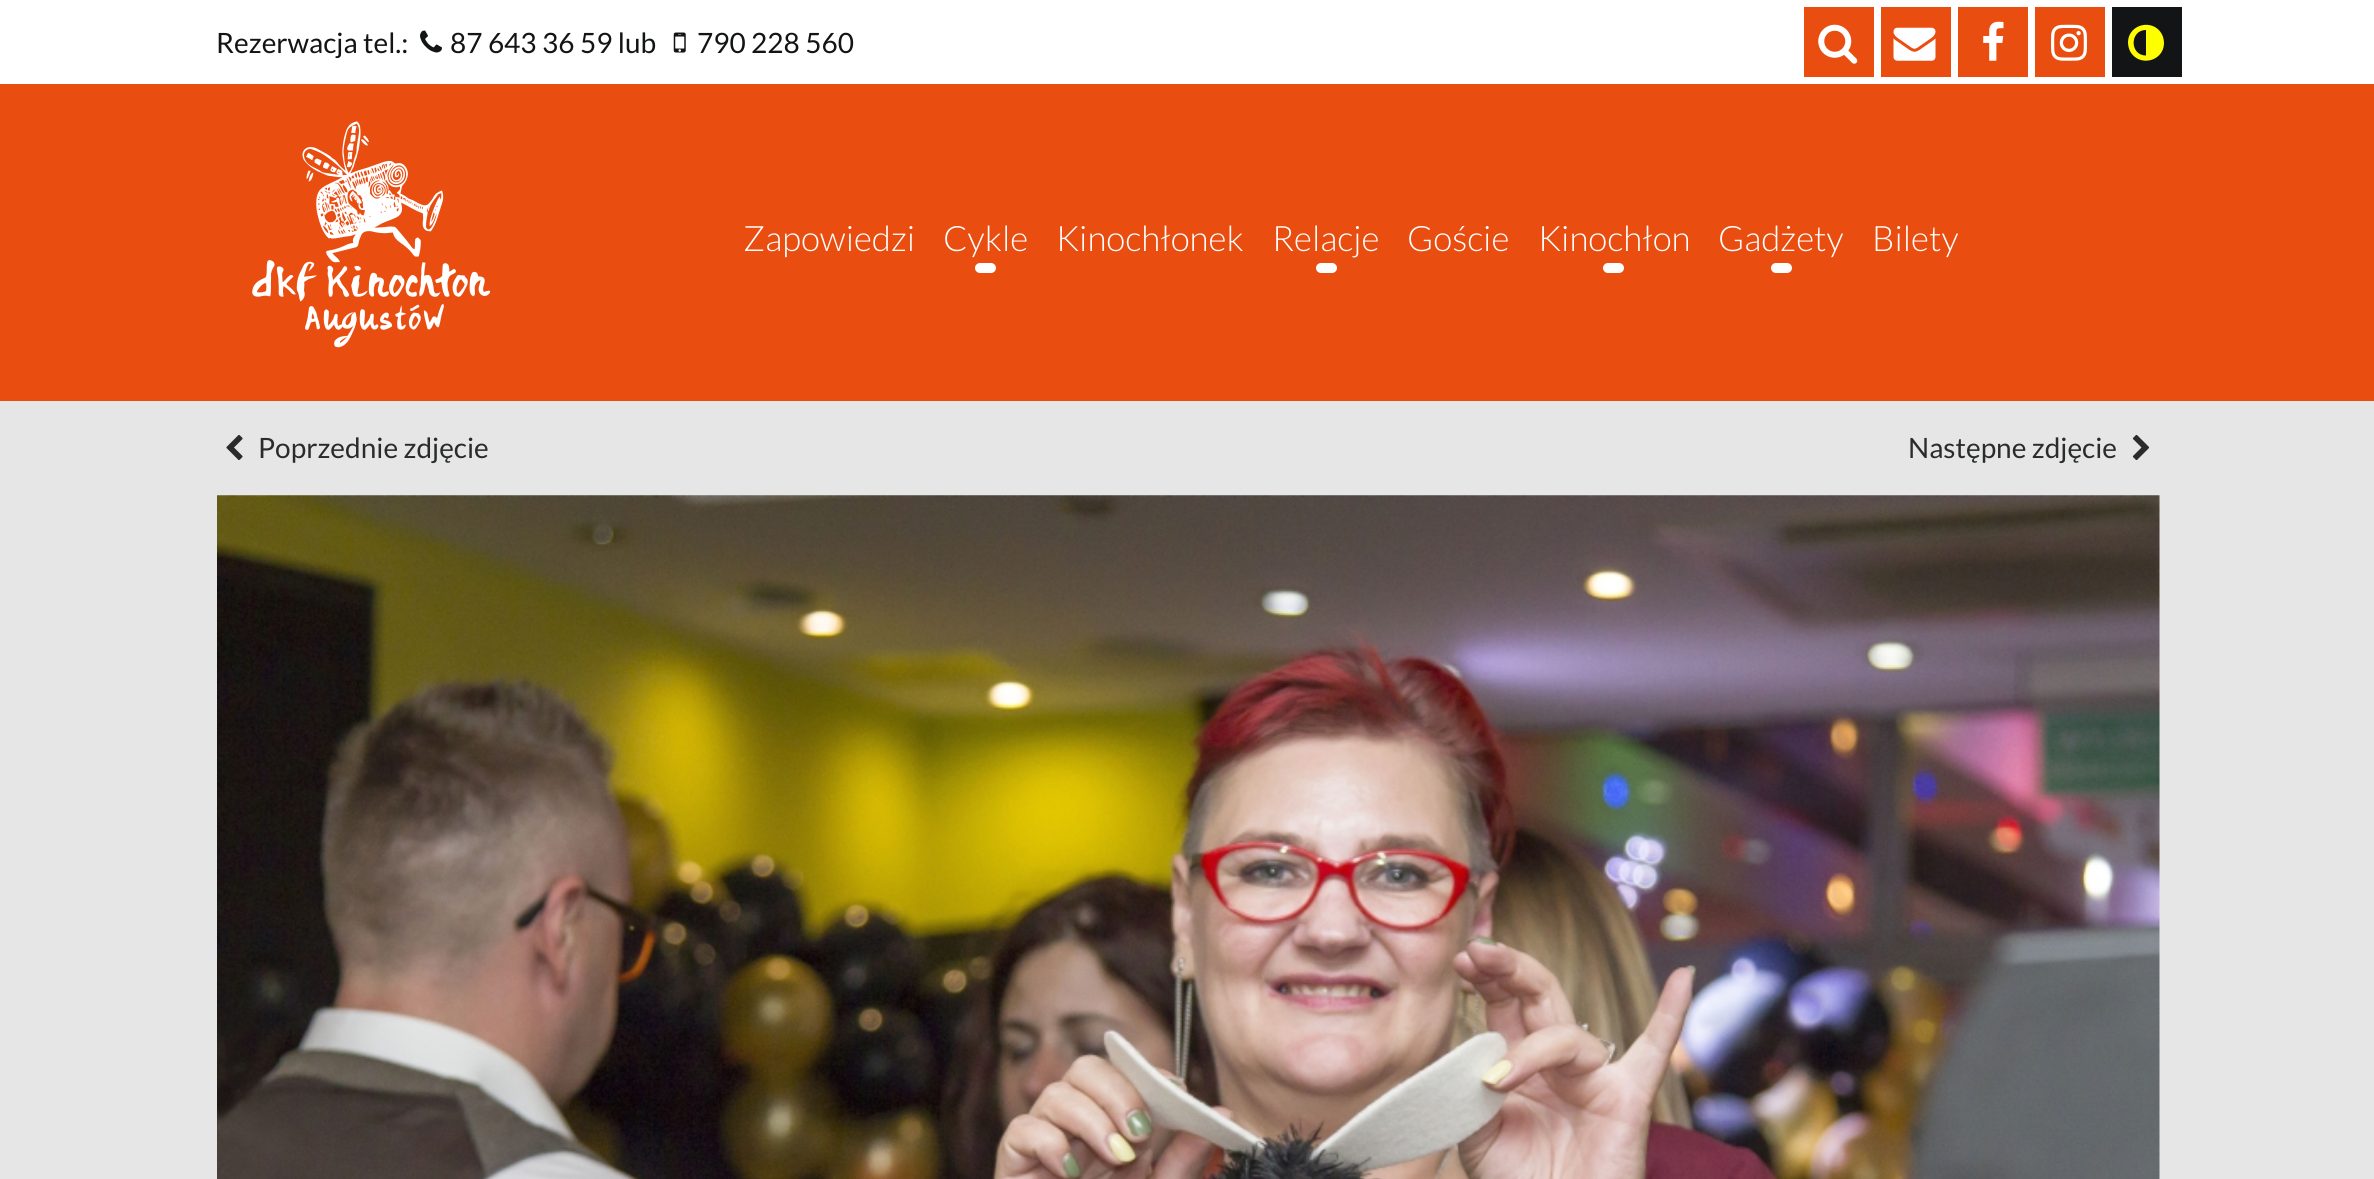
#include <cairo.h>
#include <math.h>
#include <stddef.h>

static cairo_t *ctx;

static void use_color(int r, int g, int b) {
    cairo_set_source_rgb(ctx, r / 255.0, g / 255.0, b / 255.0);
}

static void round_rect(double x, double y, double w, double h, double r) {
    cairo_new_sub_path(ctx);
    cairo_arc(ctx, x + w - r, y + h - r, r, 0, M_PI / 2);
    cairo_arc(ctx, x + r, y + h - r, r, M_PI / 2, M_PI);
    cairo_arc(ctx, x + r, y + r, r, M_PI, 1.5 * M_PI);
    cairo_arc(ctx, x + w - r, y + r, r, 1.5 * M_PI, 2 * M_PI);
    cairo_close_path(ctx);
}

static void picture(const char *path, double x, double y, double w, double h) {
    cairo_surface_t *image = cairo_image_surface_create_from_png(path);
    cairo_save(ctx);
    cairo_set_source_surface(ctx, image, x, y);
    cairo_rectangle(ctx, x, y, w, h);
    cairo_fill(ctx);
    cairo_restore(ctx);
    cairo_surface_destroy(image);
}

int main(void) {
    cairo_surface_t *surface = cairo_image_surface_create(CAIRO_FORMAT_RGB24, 2374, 1179);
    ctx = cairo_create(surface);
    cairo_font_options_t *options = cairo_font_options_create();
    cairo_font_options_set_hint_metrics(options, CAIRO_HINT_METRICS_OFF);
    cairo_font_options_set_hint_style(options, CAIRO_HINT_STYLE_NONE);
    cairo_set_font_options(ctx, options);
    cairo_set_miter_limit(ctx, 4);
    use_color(230, 230, 230);
    cairo_paint(ctx);
    use_color(255, 255, 255);
    cairo_rectangle(ctx, 0, 0, 2374, 84);
    cairo_fill(ctx);
    cairo_select_font_face(ctx, "Lato", CAIRO_FONT_SLANT_NORMAL, CAIRO_FONT_WEIGHT_NORMAL);
    cairo_set_font_size(ctx, 28);
    use_color(19, 20, 22);
    cairo_move_to(ctx, 216, 53);
    cairo_show_text(ctx, "Rezerwacja tel.:");
    picture("img1.png", 420, 30, 22, 23);
    cairo_move_to(ctx, 450, 53);
    cairo_show_text(ctx, "87 643 36 59 lub");
    picture("img2.png", 673, 32, 13, 21);
    cairo_move_to(ctx, 697, 53);
    cairo_show_text(ctx, "790 228 560");
    use_color(233, 77, 16);
    cairo_rectangle(ctx, 1804, 7, 70, 70);
    cairo_fill(ctx);
    picture("img3.png", 1818, 24, 40, 40);
    cairo_rectangle(ctx, 1881, 7, 70, 70);
    cairo_fill(ctx);
    picture("img4.png", 1893, 27, 43, 34);
    cairo_rectangle(ctx, 1958, 7, 70, 70);
    cairo_fill(ctx);
    picture("img5.png", 1983, 21, 21, 40);
    cairo_rectangle(ctx, 2035, 7, 70, 70);
    cairo_fill(ctx);
    picture("img6.png", 2051, 24, 36, 37);
    use_color(19, 20, 22);
    cairo_rectangle(ctx, 2112, 7, 70, 70);
    cairo_fill(ctx);
    use_color(255, 255, 0);
    cairo_new_path(ctx);
    cairo_move_to(ctx, 2146, 55.5);
    cairo_line_to(ctx, 2146, 30);
    cairo_curve_to(ctx, 2129.5, 30, 2129.5, 55.5, 2146, 55.5);
    cairo_close_path(ctx);
    cairo_move_to(ctx, 2161.5, 33.5);
    cairo_curve_to(ctx, 2163.5, 37, 2164, 40.5, 2164, 44);
    cairo_curve_to(ctx, 2163, 61.5, 2139.5, 67, 2130.5, 52);
    cairo_curve_to(ctx, 2128.5, 48.5, 2128, 45, 2128, 41.5);
    cairo_curve_to(ctx, 2129, 24, 2152.5, 18.5, 2161.5, 33.5);
    cairo_close_path(ctx);
    cairo_fill(ctx);
    use_color(233, 77, 16);
    cairo_rectangle(ctx, 0, 84, 2374, 317);
    cairo_fill(ctx);
    picture("img7.png", 252, 121, 239, 227);
    cairo_select_font_face(ctx, "Lato Light", CAIRO_FONT_SLANT_NORMAL, CAIRO_FONT_WEIGHT_NORMAL);
    cairo_set_font_size(ctx, 35);
    use_color(255, 255, 255);
    cairo_move_to(ctx, 743, 251);
    cairo_show_text(ctx, "Zapowiedzi");
    cairo_move_to(ctx, 943, 251);
    cairo_show_text(ctx, "Cykle");
    round_rect(975, 263, 21, 10, 5);
    cairo_fill(ctx);
    cairo_move_to(ctx, 1056, 251);
    cairo_show_text(ctx, "Kinochłonek");
    cairo_move_to(ctx, 1272, 251);
    cairo_show_text(ctx, "Relacje");
    round_rect(1316, 263, 21, 10, 5);
    cairo_fill(ctx);
    cairo_move_to(ctx, 1407, 251);
    cairo_show_text(ctx, "Goście");
    cairo_move_to(ctx, 1538, 251);
    cairo_show_text(ctx, "Kinochłon");
    round_rect(1603, 263, 21, 10, 5);
    cairo_fill(ctx);
    cairo_move_to(ctx, 1718, 251);
    cairo_show_text(ctx, "Gadżety");
    round_rect(1771, 263, 21, 10, 5);
    cairo_fill(ctx);
    cairo_move_to(ctx, 1872, 251);
    cairo_show_text(ctx, "Bilety");
    picture("img8.png", 226, 434, 17, 26);
    cairo_select_font_face(ctx, "Lato", CAIRO_FONT_SLANT_NORMAL, CAIRO_FONT_WEIGHT_NORMAL);
    cairo_set_font_size(ctx, 28);
    use_color(41, 43, 44);
    cairo_move_to(ctx, 258, 458);
    cairo_show_text(ctx, "Poprzednie zdjęcie");
    cairo_move_to(ctx, 1908, 458);
    cairo_show_text(ctx, "Następne zdjęcie");
    picture("img9.png", 2132, 434, 18, 27);
    picture("img10.png", 217, 495, 1943, 684);
    cairo_surface_write_to_png(surface, "result.png");
    cairo_font_options_destroy(options);
    cairo_destroy(ctx);
    cairo_surface_destroy(surface);
    return 0;
}
